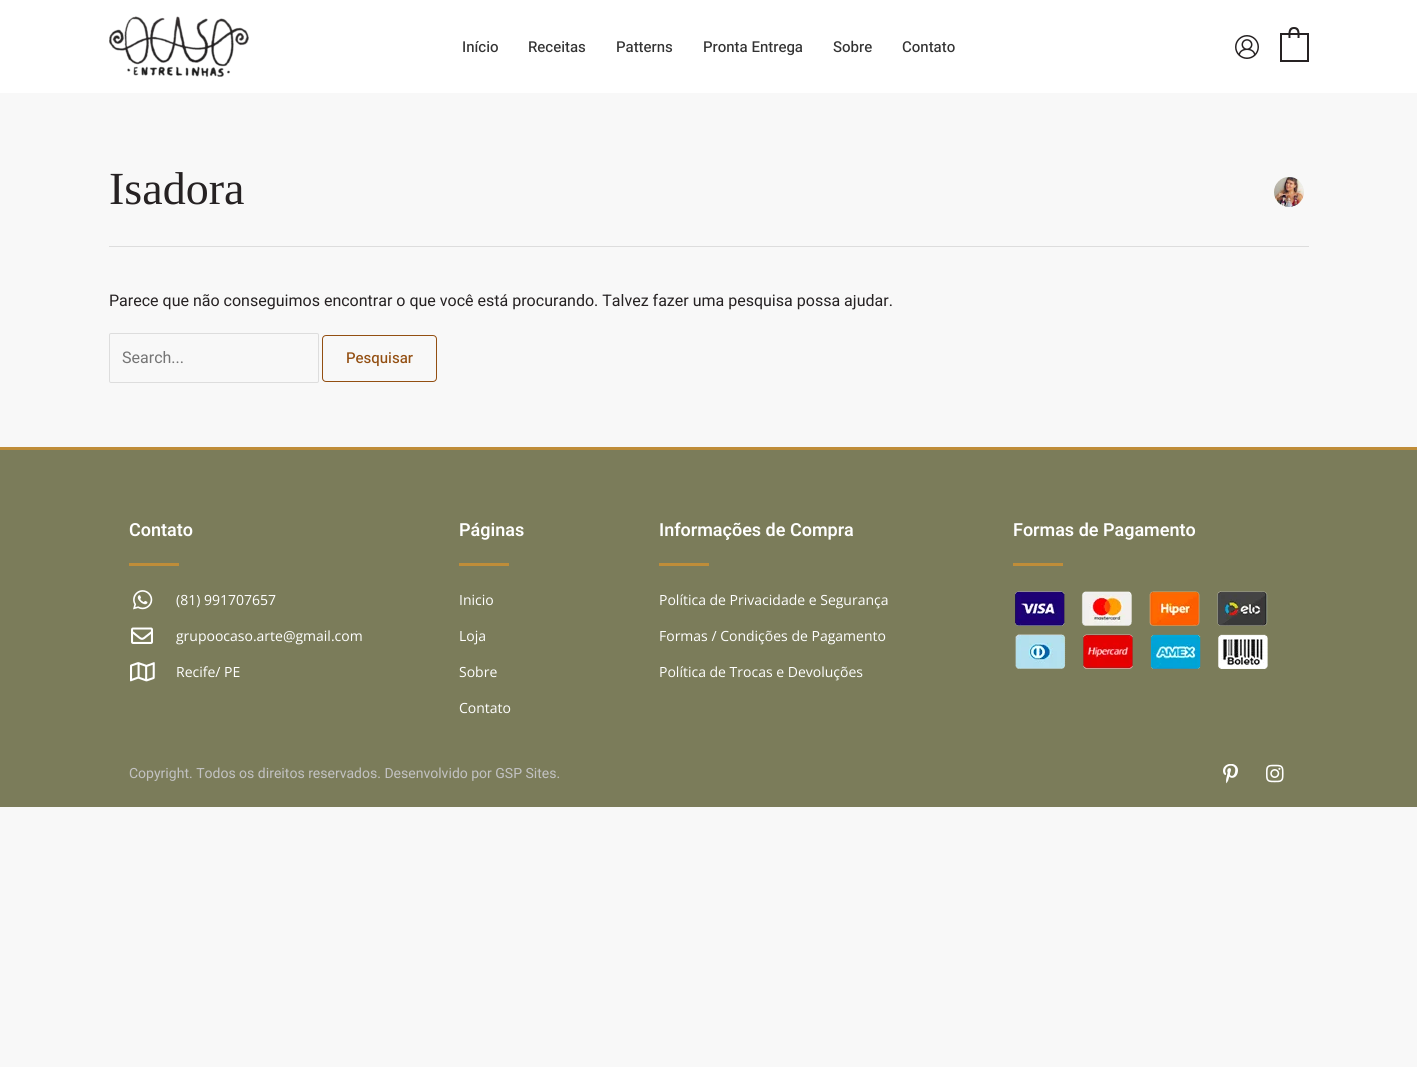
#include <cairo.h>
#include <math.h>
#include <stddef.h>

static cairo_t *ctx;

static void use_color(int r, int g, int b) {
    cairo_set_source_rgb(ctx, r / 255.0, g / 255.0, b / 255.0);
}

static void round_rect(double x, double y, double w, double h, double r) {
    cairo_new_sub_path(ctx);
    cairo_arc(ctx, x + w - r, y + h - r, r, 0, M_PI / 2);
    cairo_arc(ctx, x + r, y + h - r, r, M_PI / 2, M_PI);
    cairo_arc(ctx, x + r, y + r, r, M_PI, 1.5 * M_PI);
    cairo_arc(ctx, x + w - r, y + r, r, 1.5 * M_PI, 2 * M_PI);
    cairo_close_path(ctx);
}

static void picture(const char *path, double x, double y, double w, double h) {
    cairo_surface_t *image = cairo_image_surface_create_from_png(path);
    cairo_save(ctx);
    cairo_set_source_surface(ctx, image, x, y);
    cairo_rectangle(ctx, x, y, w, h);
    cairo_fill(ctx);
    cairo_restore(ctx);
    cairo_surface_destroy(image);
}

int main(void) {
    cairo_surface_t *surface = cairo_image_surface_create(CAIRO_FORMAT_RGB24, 1417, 1067);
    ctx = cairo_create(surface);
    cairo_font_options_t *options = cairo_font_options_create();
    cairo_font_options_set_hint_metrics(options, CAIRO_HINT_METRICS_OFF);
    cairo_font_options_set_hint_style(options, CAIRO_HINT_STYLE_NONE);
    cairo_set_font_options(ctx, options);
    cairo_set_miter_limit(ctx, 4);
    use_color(248, 248, 248);
    cairo_paint(ctx);
    use_color(255, 255, 255);
    cairo_rectangle(ctx, 0, 0, 1417, 93);
    cairo_fill(ctx);
    picture("img1.png", 109, 16, 140, 61);
    cairo_select_font_face(ctx, "Heebo Medium", CAIRO_FONT_SLANT_NORMAL, CAIRO_FONT_WEIGHT_NORMAL);
    cairo_set_font_size(ctx, 15);
    use_color(51, 51, 51);
    cairo_move_to(ctx, 462, 52);
    cairo_show_text(ctx, "Início");
    cairo_move_to(ctx, 528, 52);
    cairo_show_text(ctx, "Receitas");
    cairo_move_to(ctx, 616, 52);
    cairo_show_text(ctx, "Patterns");
    cairo_move_to(ctx, 703, 52);
    cairo_show_text(ctx, "Pronta Entrega");
    cairo_move_to(ctx, 833, 52);
    cairo_show_text(ctx, "Sobre");
    cairo_move_to(ctx, 902, 52);
    cairo_show_text(ctx, "Contato");
    picture("img2.png", 1235, 35, 24, 24);
    cairo_rectangle(ctx, 1281, 34, 27, 27);
    use_color(38, 34, 35);
    cairo_stroke(ctx);
    cairo_set_fill_rule(ctx, CAIRO_FILL_RULE_EVEN_ODD);
    cairo_new_path(ctx);
    cairo_move_to(ctx, 1294, 27);
    cairo_curve_to(ctx, 1300.5, 27, 1299.5, 33.5, 1299.5, 38);
    cairo_line_to(ctx, 1288.5, 38);
    cairo_curve_to(ctx, 1288.5, 33.5, 1287.5, 27, 1294, 27);
    cairo_close_path(ctx);
    cairo_move_to(ctx, 1294, 29);
    cairo_curve_to(ctx, 1298.5, 29, 1297.5, 35, 1297.5, 38);
    cairo_line_to(ctx, 1290.5, 38);
    cairo_curve_to(ctx, 1290.5, 35, 1289.5, 29, 1294, 29);
    cairo_close_path(ctx);
    cairo_fill(ctx);
    use_color(221, 221, 221);
    cairo_rectangle(ctx, 109, 246, 1200, 1);
    cairo_fill(ctx);
    cairo_select_font_face(ctx, "Liberation Serif", CAIRO_FONT_SLANT_NORMAL, CAIRO_FONT_WEIGHT_NORMAL);
    cairo_set_font_size(ctx, 46);
    use_color(38, 34, 35);
    cairo_move_to(ctx, 109, 204);
    cairo_show_text(ctx, "Isadora");
    picture("img3.png", 1274, 177, 30, 30);
    cairo_select_font_face(ctx, "Heebo", CAIRO_FONT_SLANT_NORMAL, CAIRO_FONT_WEIGHT_NORMAL);
    cairo_set_font_size(ctx, 16);
    cairo_move_to(ctx, 109, 306);
    cairo_show_text(ctx, "Parece que não conseguimos encontrar o que você está procurando. Talvez fazer uma pesquisa possa ajudar.");
    round_rect(109.5, 333.5, 209, 49, 1.5);
    use_color(221, 221, 221);
    cairo_set_line_width(ctx, 1);
    cairo_stroke(ctx);
    use_color(117, 117, 117);
    cairo_move_to(ctx, 122, 363);
    cairo_show_text(ctx, "Search...");
    round_rect(322.5, 335.5, 114, 46, 3.5);
    use_color(147, 79, 18);
    cairo_stroke(ctx);
    cairo_select_font_face(ctx, "Heebo Medium", CAIRO_FONT_SLANT_NORMAL, CAIRO_FONT_WEIGHT_NORMAL);
    cairo_set_font_size(ctx, 15);
    cairo_move_to(ctx, 346, 363);
    cairo_show_text(ctx, "Pesquisar");
    use_color(123, 124, 90);
    cairo_rectangle(ctx, 0, 450, 1417, 357);
    cairo_fill(ctx);
    use_color(191, 141, 57);
    cairo_rectangle(ctx, 0, 447, 1417, 3);
    cairo_fill(ctx);
    cairo_select_font_face(ctx, "Heebo SemiBold", CAIRO_FONT_SLANT_NORMAL, CAIRO_FONT_WEIGHT_NORMAL);
    cairo_set_font_size(ctx, 18);
    use_color(255, 255, 255);
    cairo_move_to(ctx, 129, 536);
    cairo_show_text(ctx, "Contato");
    use_color(191, 141, 57);
    cairo_rectangle(ctx, 129, 563, 50, 3);
    cairo_fill(ctx);
    picture("img4.png", 133, 590, 20, 20);
    cairo_select_font_face(ctx, "Open Sans", CAIRO_FONT_SLANT_NORMAL, CAIRO_FONT_WEIGHT_NORMAL);
    cairo_set_font_size(ctx, 14);
    use_color(255, 255, 255);
    cairo_move_to(ctx, 176, 605);
    cairo_show_text(ctx, "(81) 991707657");
    picture("img5.png", 131, 627, 22, 17);
    cairo_move_to(ctx, 176, 641);
    cairo_show_text(ctx, "grupoocaso.arte@gmail.com");
    picture("img6.png", 130, 662, 25, 20);
    cairo_move_to(ctx, 176, 677);
    cairo_show_text(ctx, "Recife/ PE");
    cairo_select_font_face(ctx, "Heebo SemiBold", CAIRO_FONT_SLANT_NORMAL, CAIRO_FONT_WEIGHT_NORMAL);
    cairo_set_font_size(ctx, 18);
    cairo_move_to(ctx, 459, 536);
    cairo_show_text(ctx, "Páginas");
    use_color(191, 141, 57);
    cairo_rectangle(ctx, 459, 563, 50, 3);
    cairo_fill(ctx);
    cairo_select_font_face(ctx, "Open Sans", CAIRO_FONT_SLANT_NORMAL, CAIRO_FONT_WEIGHT_NORMAL);
    cairo_set_font_size(ctx, 14);
    use_color(255, 255, 255);
    cairo_move_to(ctx, 459, 605);
    cairo_show_text(ctx, "Inicio");
    cairo_move_to(ctx, 459, 641);
    cairo_show_text(ctx, "Loja");
    cairo_move_to(ctx, 459, 677);
    cairo_show_text(ctx, "Sobre");
    cairo_move_to(ctx, 459, 713);
    cairo_show_text(ctx, "Contato");
    cairo_select_font_face(ctx, "Heebo SemiBold", CAIRO_FONT_SLANT_NORMAL, CAIRO_FONT_WEIGHT_NORMAL);
    cairo_set_font_size(ctx, 18);
    cairo_move_to(ctx, 659, 536);
    cairo_show_text(ctx, "Informações de Compra");
    use_color(191, 141, 57);
    cairo_rectangle(ctx, 659, 563, 50, 3);
    cairo_fill(ctx);
    cairo_select_font_face(ctx, "Open Sans", CAIRO_FONT_SLANT_NORMAL, CAIRO_FONT_WEIGHT_NORMAL);
    cairo_set_font_size(ctx, 14);
    use_color(255, 255, 255);
    cairo_move_to(ctx, 659, 605);
    cairo_show_text(ctx, "Política de Privacidade e Segurança");
    cairo_move_to(ctx, 659, 641);
    cairo_show_text(ctx, "Formas / Condições de Pagamento");
    cairo_move_to(ctx, 659, 677);
    cairo_show_text(ctx, "Política de Trocas e Devoluções");
    cairo_select_font_face(ctx, "Heebo SemiBold", CAIRO_FONT_SLANT_NORMAL, CAIRO_FONT_WEIGHT_NORMAL);
    cairo_set_font_size(ctx, 18);
    cairo_move_to(ctx, 1013, 536);
    cairo_show_text(ctx, "Formas de Pagamento");
    use_color(191, 141, 57);
    cairo_rectangle(ctx, 1013, 563, 50, 3);
    cairo_fill(ctx);
    picture("img7.png", 1015, 591, 253, 78);
    cairo_select_font_face(ctx, "Heebo", CAIRO_FONT_SLANT_NORMAL, CAIRO_FONT_WEIGHT_NORMAL);
    cairo_set_font_size(ctx, 14);
    use_color(194, 194, 194);
    cairo_move_to(ctx, 129, 778);
    cairo_show_text(ctx, "Copyright. Todos os direitos reservados. Desenvolvido por GSP Sites.");
    picture("img8.png", 1223, 764, 15, 20);
    picture("img9.png", 1266, 764, 18, 19);
    cairo_surface_write_to_png(surface, "result.png");
    cairo_font_options_destroy(options);
    cairo_destroy(ctx);
    cairo_surface_destroy(surface);
    return 0;
}
